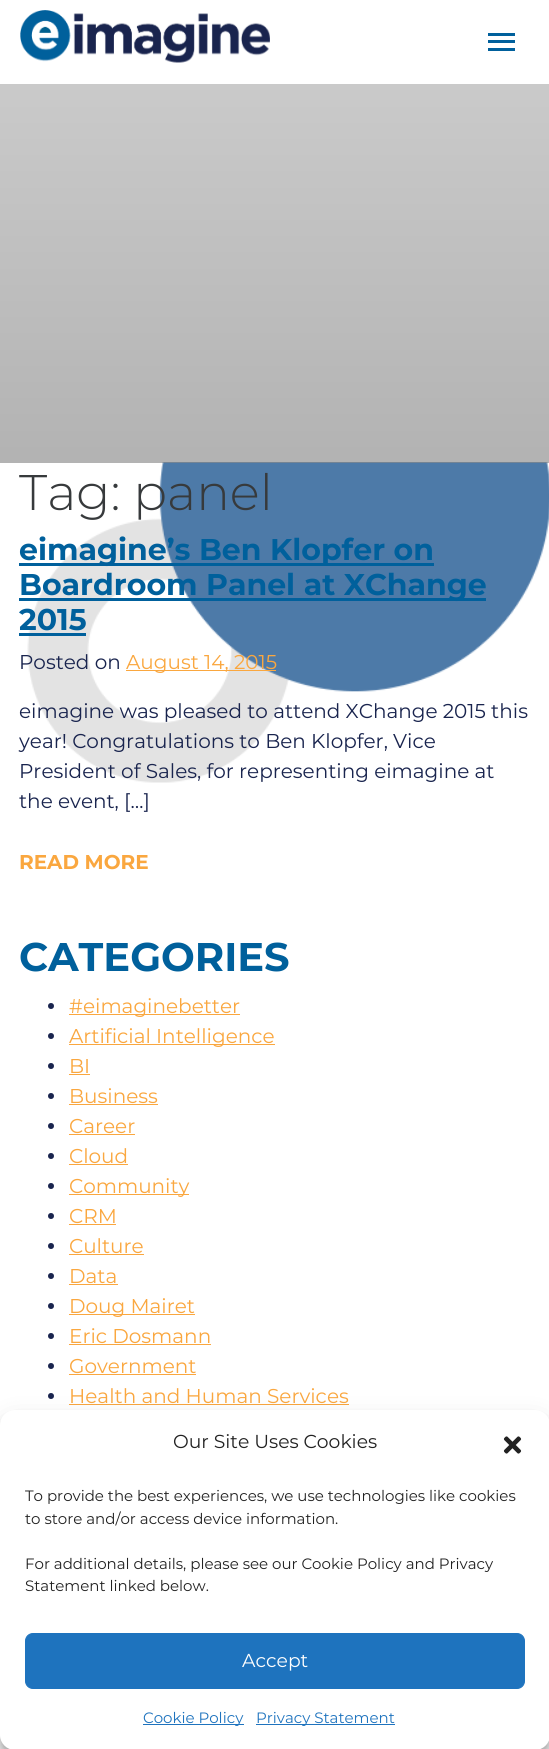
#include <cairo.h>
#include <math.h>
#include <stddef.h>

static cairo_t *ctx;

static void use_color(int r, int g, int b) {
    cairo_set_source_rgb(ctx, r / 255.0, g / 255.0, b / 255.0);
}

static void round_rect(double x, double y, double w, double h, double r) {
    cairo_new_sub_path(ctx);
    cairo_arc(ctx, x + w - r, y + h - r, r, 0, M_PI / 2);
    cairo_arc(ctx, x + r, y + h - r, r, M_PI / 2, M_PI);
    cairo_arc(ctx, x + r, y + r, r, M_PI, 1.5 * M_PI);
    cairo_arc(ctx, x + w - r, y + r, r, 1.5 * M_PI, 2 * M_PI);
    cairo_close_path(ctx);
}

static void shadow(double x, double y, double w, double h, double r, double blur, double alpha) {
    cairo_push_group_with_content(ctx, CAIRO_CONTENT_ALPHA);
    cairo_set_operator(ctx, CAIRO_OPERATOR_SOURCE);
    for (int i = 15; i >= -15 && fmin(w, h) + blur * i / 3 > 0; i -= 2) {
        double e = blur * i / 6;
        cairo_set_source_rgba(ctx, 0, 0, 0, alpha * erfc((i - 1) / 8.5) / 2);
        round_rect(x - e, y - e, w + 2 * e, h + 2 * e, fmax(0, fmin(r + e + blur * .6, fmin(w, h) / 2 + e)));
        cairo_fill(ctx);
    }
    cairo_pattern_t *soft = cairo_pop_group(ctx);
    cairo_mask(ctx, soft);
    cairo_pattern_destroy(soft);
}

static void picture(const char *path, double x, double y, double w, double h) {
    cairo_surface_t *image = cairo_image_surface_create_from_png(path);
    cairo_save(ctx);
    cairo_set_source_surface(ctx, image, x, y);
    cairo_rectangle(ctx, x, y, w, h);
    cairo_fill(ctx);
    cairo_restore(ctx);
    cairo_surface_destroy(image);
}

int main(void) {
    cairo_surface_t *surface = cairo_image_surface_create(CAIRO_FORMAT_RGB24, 549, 1749);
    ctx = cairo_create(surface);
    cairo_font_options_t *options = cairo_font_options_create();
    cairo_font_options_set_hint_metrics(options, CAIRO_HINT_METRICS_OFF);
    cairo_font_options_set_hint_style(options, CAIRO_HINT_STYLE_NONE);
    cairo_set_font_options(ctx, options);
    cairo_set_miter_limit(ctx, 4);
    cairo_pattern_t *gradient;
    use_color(255, 255, 255);
    cairo_paint(ctx);
    picture("img1.png", 20, 10, 250, 53);
    use_color(0, 96, 156);
    cairo_rectangle(ctx, 488, 33, 27, 3);
    cairo_fill(ctx);
    cairo_rectangle(ctx, 488, 40, 27, 3);
    cairo_fill(ctx);
    cairo_rectangle(ctx, 488, 48, 27, 3);
    cairo_fill(ctx);
    picture("img2.png", 27, 462, 522, 321);
    gradient = cairo_pattern_create_linear(275, 50, 275, 463);
    cairo_pattern_add_color_stop_rgba(gradient, 0, 0, 0, 0, 0.2);
    cairo_pattern_add_color_stop_rgba(gradient, 1, 0, 0, 0, 0.3);
    cairo_set_source(ctx, gradient);
    cairo_pattern_destroy(gradient);
    cairo_rectangle(ctx, 0, 84, 549, 379);
    cairo_fill(ctx);
    cairo_select_font_face(ctx, "Montserrat Light", CAIRO_FONT_SLANT_NORMAL, CAIRO_FONT_WEIGHT_NORMAL);
    cairo_set_font_size(ctx, 50);
    use_color(55, 58, 60);
    cairo_move_to(ctx, 19, 510);
    cairo_show_text(ctx, "Tag: panel");
    use_color(0, 96, 156);
    cairo_rectangle(ctx, 19, 563, 415, 3);
    cairo_fill(ctx);
    cairo_select_font_face(ctx, "Montserrat", CAIRO_FONT_SLANT_NORMAL, CAIRO_FONT_WEIGHT_BOLD);
    cairo_set_font_size(ctx, 30);
    cairo_move_to(ctx, 19, 560);
    cairo_show_text(ctx, "eimagine’s Ben Klopfer on");
    cairo_rectangle(ctx, 19, 598, 467, 3);
    cairo_fill(ctx);
    cairo_move_to(ctx, 19, 595);
    cairo_show_text(ctx, "Boardroom Panel at XChange");
    cairo_move_to(ctx, 19, 630);
    cairo_show_text(ctx, "2015");
    cairo_rectangle(ctx, 19, 633, 67, 3);
    cairo_fill(ctx);
    cairo_select_font_face(ctx, "Montserrat", CAIRO_FONT_SLANT_NORMAL, CAIRO_FONT_WEIGHT_NORMAL);
    cairo_set_font_size(ctx, 20);
    use_color(25, 36, 78);
    cairo_move_to(ctx, 19, 669);
    cairo_show_text(ctx, "Posted on");
    use_color(250, 167, 63);
    cairo_rectangle(ctx, 126, 670, 150, 1);
    cairo_fill(ctx);
    cairo_move_to(ctx, 126, 669);
    cairo_show_text(ctx, "August 14, 2015");
    use_color(25, 36, 78);
    cairo_move_to(ctx, 19, 718);
    cairo_show_text(ctx, "eimagine was pleased to attend XChange 2015 this");
    cairo_move_to(ctx, 19, 748);
    cairo_show_text(ctx, "year! Congratulations to Ben Klopfer, Vice");
    cairo_move_to(ctx, 19, 778);
    cairo_show_text(ctx, "President of Sales, for representing eimagine at");
    cairo_move_to(ctx, 19, 808);
    cairo_show_text(ctx, "the event, […]");
    cairo_select_font_face(ctx, "Montserrat", CAIRO_FONT_SLANT_NORMAL, CAIRO_FONT_WEIGHT_BOLD);
    use_color(250, 167, 63);
    cairo_move_to(ctx, 19, 869);
    cairo_show_text(ctx, "READ MORE");
    cairo_set_font_size(ctx, 40);
    use_color(0, 96, 156);
    cairo_move_to(ctx, 19, 971);
    cairo_show_text(ctx, "CATEGORIES");
    use_color(25, 36, 78);
    cairo_new_path(ctx);
    cairo_arc(ctx, 51, 1006, 3, 0, 2 * M_PI);
    cairo_fill(ctx);
    use_color(250, 167, 63);
    cairo_rectangle(ctx, 69, 1014, 171, 1);
    cairo_fill(ctx);
    cairo_select_font_face(ctx, "Montserrat", CAIRO_FONT_SLANT_NORMAL, CAIRO_FONT_WEIGHT_NORMAL);
    cairo_set_font_size(ctx, 20);
    cairo_move_to(ctx, 69, 1013);
    cairo_show_text(ctx, "#eimaginebetter");
    use_color(25, 36, 78);
    cairo_new_path(ctx);
    cairo_arc(ctx, 51, 1036, 3, 0, 2 * M_PI);
    cairo_fill(ctx);
    use_color(250, 167, 63);
    cairo_rectangle(ctx, 69, 1044, 206, 1);
    cairo_fill(ctx);
    cairo_move_to(ctx, 69, 1043);
    cairo_show_text(ctx, "Artificial Intelligence");
    use_color(25, 36, 78);
    cairo_new_path(ctx);
    cairo_arc(ctx, 51, 1066, 3, 0, 2 * M_PI);
    cairo_fill(ctx);
    use_color(250, 167, 63);
    cairo_move_to(ctx, 69, 1073);
    cairo_show_text(ctx, "BI");
    cairo_rectangle(ctx, 69, 1074, 21, 1);
    cairo_fill(ctx);
    use_color(25, 36, 78);
    cairo_arc(ctx, 51, 1096, 3, 0, 2 * M_PI);
    cairo_fill(ctx);
    use_color(250, 167, 63);
    cairo_move_to(ctx, 69, 1103);
    cairo_show_text(ctx, "Business");
    cairo_rectangle(ctx, 69, 1104, 89, 1);
    cairo_fill(ctx);
    use_color(25, 36, 78);
    cairo_arc(ctx, 51, 1126, 3, 0, 2 * M_PI);
    cairo_fill(ctx);
    use_color(250, 167, 63);
    cairo_move_to(ctx, 69, 1133);
    cairo_show_text(ctx, "Career");
    cairo_rectangle(ctx, 69, 1134, 66, 1);
    cairo_fill(ctx);
    use_color(25, 36, 78);
    cairo_arc(ctx, 51, 1156, 3, 0, 2 * M_PI);
    cairo_fill(ctx);
    use_color(250, 167, 63);
    cairo_move_to(ctx, 69, 1163);
    cairo_show_text(ctx, "Cloud");
    cairo_rectangle(ctx, 69, 1164, 59, 1);
    cairo_fill(ctx);
    use_color(25, 36, 78);
    cairo_arc(ctx, 51, 1186, 3, 0, 2 * M_PI);
    cairo_fill(ctx);
    use_color(250, 167, 63);
    cairo_rectangle(ctx, 69, 1194, 120, 1);
    cairo_fill(ctx);
    cairo_move_to(ctx, 69, 1193);
    cairo_show_text(ctx, "Community");
    use_color(25, 36, 78);
    cairo_new_path(ctx);
    cairo_arc(ctx, 51, 1216, 3, 0, 2 * M_PI);
    cairo_fill(ctx);
    use_color(250, 167, 63);
    cairo_move_to(ctx, 69, 1223);
    cairo_show_text(ctx, "CRM");
    cairo_rectangle(ctx, 69, 1224, 47, 1);
    cairo_fill(ctx);
    use_color(25, 36, 78);
    cairo_arc(ctx, 51, 1246, 3, 0, 2 * M_PI);
    cairo_fill(ctx);
    use_color(250, 167, 63);
    cairo_move_to(ctx, 69, 1253);
    cairo_show_text(ctx, "Culture");
    cairo_rectangle(ctx, 69, 1254, 75, 1);
    cairo_fill(ctx);
    use_color(25, 36, 78);
    cairo_arc(ctx, 51, 1276, 3, 0, 2 * M_PI);
    cairo_fill(ctx);
    use_color(250, 167, 63);
    cairo_move_to(ctx, 69, 1283);
    cairo_show_text(ctx, "Data");
    cairo_rectangle(ctx, 69, 1284, 49, 1);
    cairo_fill(ctx);
    use_color(25, 36, 78);
    cairo_arc(ctx, 51, 1306, 3, 0, 2 * M_PI);
    cairo_fill(ctx);
    use_color(250, 167, 63);
    cairo_rectangle(ctx, 69, 1314, 126, 1);
    cairo_fill(ctx);
    cairo_move_to(ctx, 69, 1313);
    cairo_show_text(ctx, "Doug Mairet");
    use_color(25, 36, 78);
    cairo_new_path(ctx);
    cairo_arc(ctx, 51, 1336, 3, 0, 2 * M_PI);
    cairo_fill(ctx);
    use_color(250, 167, 63);
    cairo_move_to(ctx, 69, 1343);
    cairo_show_text(ctx, "Eric Dosmann");
    cairo_rectangle(ctx, 69, 1344, 142, 1);
    cairo_fill(ctx);
    use_color(25, 36, 78);
    cairo_arc(ctx, 51, 1366, 3, 0, 2 * M_PI);
    cairo_fill(ctx);
    use_color(250, 167, 63);
    cairo_move_to(ctx, 69, 1373);
    cairo_show_text(ctx, "Government");
    cairo_rectangle(ctx, 69, 1374, 127, 1);
    cairo_fill(ctx);
    use_color(25, 36, 78);
    cairo_arc(ctx, 51, 1396, 3, 0, 2 * M_PI);
    cairo_fill(ctx);
    use_color(250, 167, 63);
    cairo_move_to(ctx, 69, 1403);
    cairo_show_text(ctx, "Health and Human Services");
    cairo_rectangle(ctx, 69, 1404, 280, 1);
    cairo_fill(ctx);
    use_color(0, 0, 0);
    shadow(0, 1418, 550, 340, 15, 4, 0.23);
    shadow(0, 1423, 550, 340, 15, 12.5, 0.19);
    use_color(255, 255, 255);
    round_rect(0, 1410, 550, 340, 15);
    cairo_fill(ctx);
    cairo_set_font_size(ctx, 18.75);
    use_color(34, 34, 34);
    cairo_move_to(ctx, 173, 1448);
    cairo_show_text(ctx, "Our Site Uses Cookies");
    picture("img3.png", 503, 1436, 19, 18);
    cairo_set_font_size(ctx, 15);
    cairo_move_to(ctx, 25, 1501);
    cairo_show_text(ctx, "To provide the best experiences, we use technologies like cookies");
    cairo_move_to(ctx, 25, 1524);
    cairo_show_text(ctx, "to store and/or access device information.");
    cairo_move_to(ctx, 25, 1569);
    cairo_show_text(ctx, "For additional details, please see our Cookie Policy and Privacy");
    cairo_move_to(ctx, 25, 1591);
    cairo_show_text(ctx, "Statement linked below.");
    use_color(30, 115, 190);
    round_rect(25.5, 1633.5, 499, 55, 7.5);
    cairo_fill_preserve(ctx);
    cairo_set_line_width(ctx, 1);
    cairo_stroke(ctx);
    cairo_set_font_size(ctx, 18.75);
    use_color(255, 255, 255);
    cairo_move_to(ctx, 242, 1667);
    cairo_show_text(ctx, "Accept");
    use_color(30, 115, 190);
    cairo_rectangle(ctx, 143, 1724, 101, 1);
    cairo_fill(ctx);
    cairo_set_font_size(ctx, 15);
    cairo_move_to(ctx, 143, 1723);
    cairo_show_text(ctx, "Cookie Policy");
    cairo_rectangle(ctx, 256, 1724, 139, 1);
    cairo_fill(ctx);
    cairo_move_to(ctx, 256, 1723);
    cairo_show_text(ctx, "Privacy Statement");
    cairo_surface_write_to_png(surface, "result.png");
    cairo_font_options_destroy(options);
    cairo_destroy(ctx);
    cairo_surface_destroy(surface);
    return 0;
}
